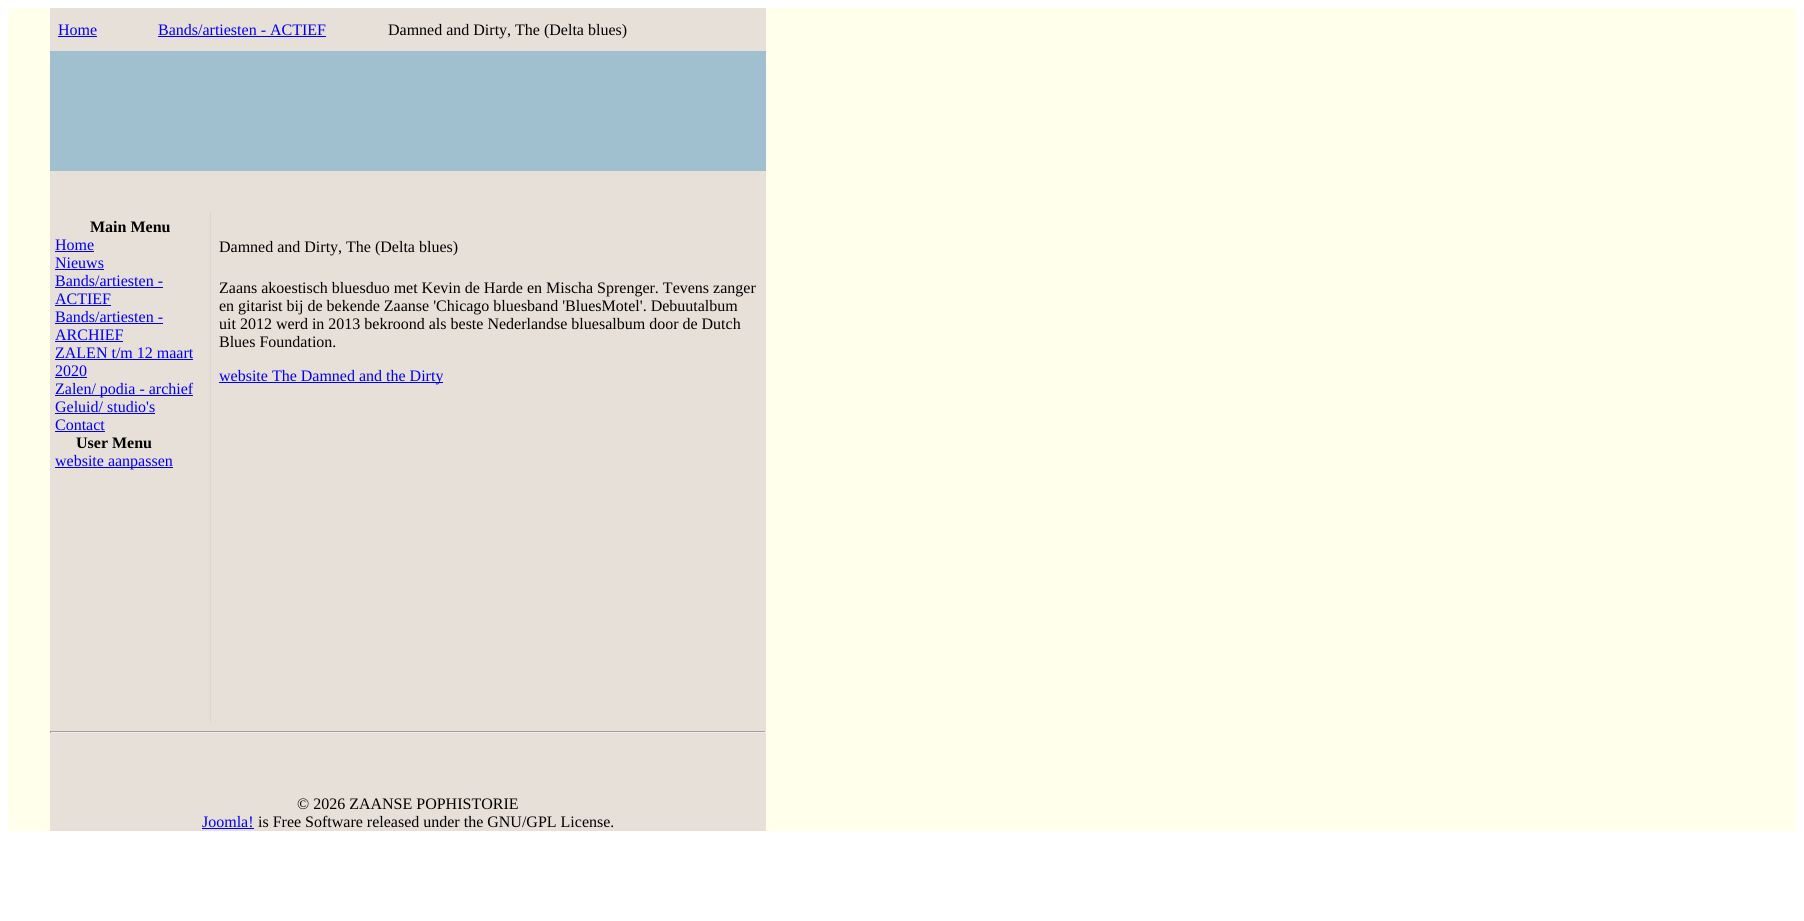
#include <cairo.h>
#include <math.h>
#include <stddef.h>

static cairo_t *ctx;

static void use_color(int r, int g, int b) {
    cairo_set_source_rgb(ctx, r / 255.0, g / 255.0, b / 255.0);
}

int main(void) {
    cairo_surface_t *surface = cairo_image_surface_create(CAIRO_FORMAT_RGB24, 1804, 921);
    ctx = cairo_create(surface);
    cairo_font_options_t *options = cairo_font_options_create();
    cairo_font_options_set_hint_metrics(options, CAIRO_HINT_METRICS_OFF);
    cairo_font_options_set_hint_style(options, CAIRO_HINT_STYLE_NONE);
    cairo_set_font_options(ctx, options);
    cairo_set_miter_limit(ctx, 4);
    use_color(255, 255, 255);
    cairo_paint(ctx);
    use_color(255, 255, 235);
    cairo_rectangle(ctx, 8, 8, 42, 823);
    cairo_fill(ctx);
    use_color(231, 224, 216);
    cairo_rectangle(ctx, 50, 8, 716, 43);
    cairo_fill(ctx);
    cairo_select_font_face(ctx, "Liberation Serif", CAIRO_FONT_SLANT_NORMAL, CAIRO_FONT_WEIGHT_NORMAL);
    cairo_set_font_size(ctx, 16);
    use_color(0, 0, 238);
    cairo_move_to(ctx, 58, 35);
    cairo_show_text(ctx, "Home");
    cairo_rectangle(ctx, 58, 36, 39, 1);
    cairo_fill(ctx);
    cairo_move_to(ctx, 158, 35);
    cairo_show_text(ctx, "Bands/artiesten - ACTIEF");
    cairo_rectangle(ctx, 158, 36, 168, 1);
    cairo_fill(ctx);
    use_color(0, 0, 0);
    cairo_move_to(ctx, 388, 35);
    cairo_show_text(ctx, "Damned and Dirty, The (Delta blues)");
    use_color(255, 255, 235);
    cairo_rectangle(ctx, 766, 8, 1030, 823);
    cairo_fill(ctx);
    use_color(160, 192, 208);
    cairo_rectangle(ctx, 50, 51, 716, 120);
    cairo_fill(ctx);
    use_color(231, 224, 216);
    cairo_rectangle(ctx, 50, 171, 716, 660);
    cairo_fill(ctx);
    cairo_new_path(ctx);
    cairo_move_to(ctx, 210.5, 213);
    cairo_line_to(ctx, 210.5, 723);
    use_color(204, 204, 204);
    cairo_set_line_width(ctx, 1);
    cairo_set_dash(ctx, (double[]){1, 1}, 2, 0);
    cairo_stroke(ctx);
    cairo_select_font_face(ctx, "Liberation Serif", CAIRO_FONT_SLANT_NORMAL, CAIRO_FONT_WEIGHT_BOLD);
    use_color(0, 0, 0);
    cairo_move_to(ctx, 90, 232);
    cairo_show_text(ctx, "Main Menu");
    cairo_select_font_face(ctx, "Liberation Serif", CAIRO_FONT_SLANT_NORMAL, CAIRO_FONT_WEIGHT_NORMAL);
    use_color(0, 0, 238);
    cairo_move_to(ctx, 55, 250);
    cairo_show_text(ctx, "Home");
    cairo_rectangle(ctx, 55, 251, 39, 1);
    cairo_fill(ctx);
    cairo_move_to(ctx, 55, 268);
    cairo_show_text(ctx, "Nieuws");
    cairo_rectangle(ctx, 55, 269, 49, 1);
    cairo_fill(ctx);
    cairo_move_to(ctx, 55, 286);
    cairo_show_text(ctx, "Bands/artiesten -");
    cairo_rectangle(ctx, 55, 287, 108, 1);
    cairo_fill(ctx);
    cairo_move_to(ctx, 55, 304);
    cairo_show_text(ctx, "ACTIEF");
    cairo_rectangle(ctx, 55, 305, 56, 1);
    cairo_fill(ctx);
    cairo_move_to(ctx, 55, 322);
    cairo_show_text(ctx, "Bands/artiesten -");
    cairo_rectangle(ctx, 55, 323, 108, 1);
    cairo_fill(ctx);
    cairo_move_to(ctx, 55, 340);
    cairo_show_text(ctx, "ARCHIEF");
    cairo_rectangle(ctx, 55, 341, 68, 1);
    cairo_fill(ctx);
    cairo_move_to(ctx, 55, 358);
    cairo_show_text(ctx, "ZALEN t/m 12 maart");
    cairo_rectangle(ctx, 55, 359, 138, 1);
    cairo_fill(ctx);
    cairo_move_to(ctx, 55, 376);
    cairo_show_text(ctx, "2020");
    cairo_rectangle(ctx, 55, 377, 32, 1);
    cairo_fill(ctx);
    cairo_rectangle(ctx, 55, 395, 138, 1);
    cairo_fill(ctx);
    cairo_move_to(ctx, 55, 394);
    cairo_show_text(ctx, "Zalen/ podia - archief");
    cairo_move_to(ctx, 55, 412);
    cairo_show_text(ctx, "Geluid/ studio's");
    cairo_rectangle(ctx, 55, 413, 100, 1);
    cairo_fill(ctx);
    cairo_move_to(ctx, 55, 430);
    cairo_show_text(ctx, "Contact");
    cairo_rectangle(ctx, 55, 431, 50, 1);
    cairo_fill(ctx);
    cairo_select_font_face(ctx, "Liberation Serif", CAIRO_FONT_SLANT_NORMAL, CAIRO_FONT_WEIGHT_BOLD);
    use_color(0, 0, 0);
    cairo_move_to(ctx, 76, 448);
    cairo_show_text(ctx, "User Menu");
    use_color(0, 0, 238);
    cairo_rectangle(ctx, 55, 467, 118, 1);
    cairo_fill(ctx);
    cairo_select_font_face(ctx, "Liberation Serif", CAIRO_FONT_SLANT_NORMAL, CAIRO_FONT_WEIGHT_NORMAL);
    cairo_move_to(ctx, 55, 466);
    cairo_show_text(ctx, "website aanpassen");
    use_color(0, 0, 0);
    cairo_move_to(ctx, 219, 252);
    cairo_show_text(ctx, "Damned and Dirty, The (Delta blues)");
    cairo_move_to(ctx, 219, 293);
    cairo_show_text(ctx, "Zaans akoestisch bluesduo met Kevin de Harde en Mischa Sprenger. Tevens zanger");
    cairo_move_to(ctx, 219, 311);
    cairo_show_text(ctx, "en gitarist bij de bekende Zaanse 'Chicago bluesband 'BluesMotel'. Debuutalbum");
    cairo_move_to(ctx, 219, 329);
    cairo_show_text(ctx, "uit 2012 werd in 2013 bekroond als beste Nederlandse bluesalbum door de Dutch");
    cairo_move_to(ctx, 219, 347);
    cairo_show_text(ctx, "Blues Foundation.");
    use_color(0, 0, 238);
    cairo_rectangle(ctx, 219, 382, 224, 1);
    cairo_fill(ctx);
    cairo_move_to(ctx, 219, 381);
    cairo_show_text(ctx, "website The Damned and the Dirty");
    use_color(159, 159, 159);
    cairo_rectangle(ctx, 50, 731, 716, 1);
    cairo_fill(ctx);
    use_color(238, 238, 238);
    cairo_rectangle(ctx, 765, 731, 1, 2);
    cairo_fill(ctx);
    cairo_rectangle(ctx, 50, 732, 716, 1);
    cairo_fill(ctx);
    use_color(159, 159, 159);
    cairo_rectangle(ctx, 50, 731, 1, 2);
    cairo_fill(ctx);
    use_color(0, 0, 0);
    cairo_move_to(ctx, 297, 809);
    cairo_show_text(ctx, "© 2026 ZAANSE POPHISTORIE");
    use_color(0, 0, 238);
    cairo_move_to(ctx, 202, 827);
    cairo_show_text(ctx, "Joomla!");
    cairo_rectangle(ctx, 202, 828, 52, 1);
    cairo_fill(ctx);
    use_color(0, 0, 0);
    cairo_move_to(ctx, 258, 827);
    cairo_show_text(ctx, "is Free Software released under the GNU/GPL License.");
    cairo_surface_write_to_png(surface, "result.png");
    cairo_font_options_destroy(options);
    cairo_destroy(ctx);
    cairo_surface_destroy(surface);
    return 0;
}
